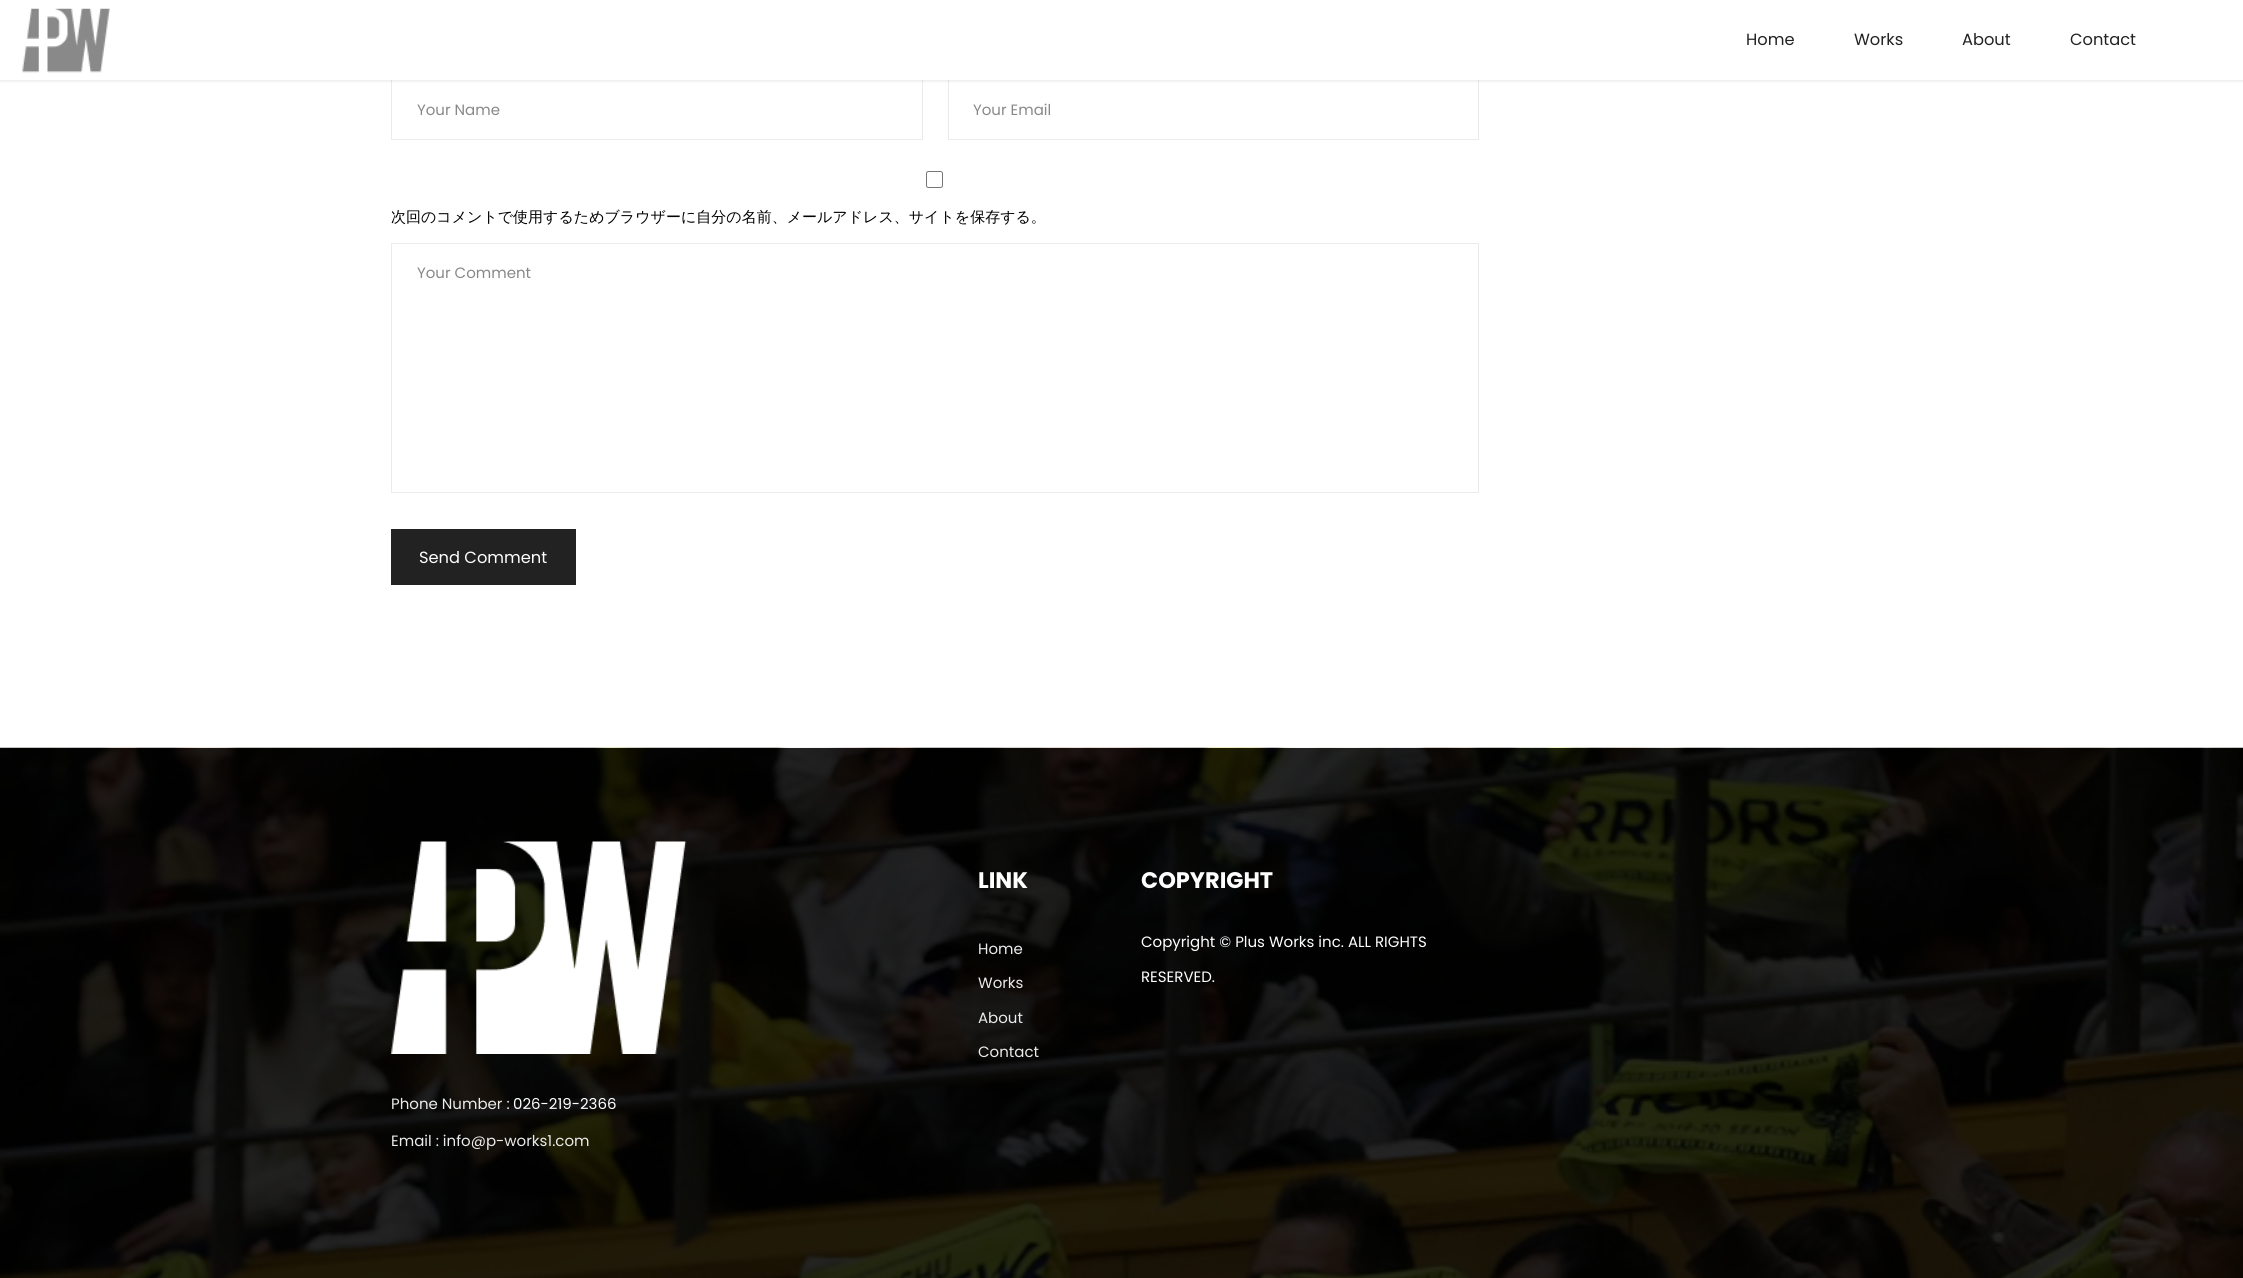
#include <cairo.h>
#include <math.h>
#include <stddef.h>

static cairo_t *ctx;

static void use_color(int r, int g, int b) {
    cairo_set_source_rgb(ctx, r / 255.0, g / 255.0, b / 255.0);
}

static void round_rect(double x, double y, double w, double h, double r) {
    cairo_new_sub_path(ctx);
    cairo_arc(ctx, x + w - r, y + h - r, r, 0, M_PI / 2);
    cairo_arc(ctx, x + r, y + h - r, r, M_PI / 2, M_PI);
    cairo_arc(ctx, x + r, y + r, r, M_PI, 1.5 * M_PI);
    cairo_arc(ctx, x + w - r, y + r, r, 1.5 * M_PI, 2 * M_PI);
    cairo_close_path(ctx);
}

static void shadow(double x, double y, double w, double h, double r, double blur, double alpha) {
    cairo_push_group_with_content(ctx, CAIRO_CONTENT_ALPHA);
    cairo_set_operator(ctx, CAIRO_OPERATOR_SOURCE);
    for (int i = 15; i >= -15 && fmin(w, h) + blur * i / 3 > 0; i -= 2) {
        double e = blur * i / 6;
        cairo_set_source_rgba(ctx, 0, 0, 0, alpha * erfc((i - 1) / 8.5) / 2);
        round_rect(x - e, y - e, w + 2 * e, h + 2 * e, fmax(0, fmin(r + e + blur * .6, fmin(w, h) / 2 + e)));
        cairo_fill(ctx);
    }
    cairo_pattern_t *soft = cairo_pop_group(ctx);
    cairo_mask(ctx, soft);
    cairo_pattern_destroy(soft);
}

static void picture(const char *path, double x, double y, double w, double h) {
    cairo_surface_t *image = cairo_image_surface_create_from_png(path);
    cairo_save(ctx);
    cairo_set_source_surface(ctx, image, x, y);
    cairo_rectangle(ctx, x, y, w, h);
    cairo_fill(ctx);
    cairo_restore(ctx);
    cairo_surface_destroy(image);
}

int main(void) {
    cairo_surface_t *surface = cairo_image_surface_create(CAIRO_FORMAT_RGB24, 2243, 1278);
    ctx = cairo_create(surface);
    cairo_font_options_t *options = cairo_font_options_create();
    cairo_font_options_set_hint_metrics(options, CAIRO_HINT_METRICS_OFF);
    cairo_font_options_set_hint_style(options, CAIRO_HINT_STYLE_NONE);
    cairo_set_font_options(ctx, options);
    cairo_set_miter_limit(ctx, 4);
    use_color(255, 255, 255);
    cairo_paint(ctx);
    use_color(246, 247, 248);
    cairo_rectangle(ctx, 1516, 0, 338, 79);
    cairo_fill(ctx);
    cairo_rectangle(ctx, 391.5, 79.5, 531, 60);
    use_color(235, 235, 235);
    cairo_set_line_width(ctx, 1);
    cairo_stroke(ctx);
    cairo_rectangle(ctx, 948.5, 79.5, 530, 60);
    cairo_stroke(ctx);
    cairo_save(ctx);
    cairo_rectangle(ctx, 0, 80, 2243, 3);
    cairo_clip(ctx);
    use_color(0, 0, 0);
    shadow(0, 1, 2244, 80, 0, 2, 0.1);
    cairo_restore(ctx);
    cairo_set_source_rgba(ctx, 1, 1, 1, 0.95);
    cairo_rectangle(ctx, 391, 0, 1463, 80);
    cairo_fill(ctx);
    picture("img1.png", 22, 8, 88, 65);
    cairo_select_font_face(ctx, "Poppins", CAIRO_FONT_SLANT_NORMAL, CAIRO_FONT_WEIGHT_NORMAL);
    cairo_set_font_size(ctx, 16.25);
    use_color(34, 34, 34);
    cairo_move_to(ctx, 1746, 45);
    cairo_show_text(ctx, "Home");
    cairo_move_to(ctx, 1854, 45);
    cairo_show_text(ctx, "Works");
    cairo_move_to(ctx, 1962, 45);
    cairo_show_text(ctx, "About");
    cairo_move_to(ctx, 2070, 45);
    cairo_show_text(ctx, "Contact");
    cairo_set_font_size(ctx, 15);
    use_color(136, 136, 136);
    cairo_move_to(ctx, 417, 115);
    cairo_show_text(ctx, "Your Name");
    cairo_move_to(ctx, 973, 115);
    cairo_show_text(ctx, "Your Email");
    round_rect(926.5, 171.5, 16, 16, 2);
    use_color(118, 118, 118);
    cairo_stroke(ctx);
    cairo_select_font_face(ctx, "WenQuanYi Zen Hei Medium", CAIRO_FONT_SLANT_NORMAL, CAIRO_FONT_WEIGHT_NORMAL);
    use_color(0, 0, 0);
    cairo_move_to(ctx, 391, 222);
    cairo_show_text(ctx, "次回のコメントで使用するためブラウザーに自分の名前、メールアドレス、サイトを保存する。");
    cairo_rectangle(ctx, 391.5, 243.5, 1087, 249);
    use_color(235, 235, 235);
    cairo_stroke(ctx);
    cairo_select_font_face(ctx, "Poppins", CAIRO_FONT_SLANT_NORMAL, CAIRO_FONT_WEIGHT_NORMAL);
    use_color(136, 136, 136);
    cairo_move_to(ctx, 417, 278);
    cairo_show_text(ctx, "Your Comment");
    use_color(34, 34, 34);
    cairo_rectangle(ctx, 391, 529, 185, 56);
    cairo_fill(ctx);
    cairo_set_font_size(ctx, 16.25);
    use_color(255, 255, 255);
    cairo_move_to(ctx, 419, 563);
    cairo_show_text(ctx, "Send Comment");
    picture("img2.png", 0, 747, 2243, 531);
    cairo_select_font_face(ctx, "Poppins", CAIRO_FONT_SLANT_NORMAL, CAIRO_FONT_WEIGHT_BOLD);
    cairo_set_font_size(ctx, 22.5);
    cairo_move_to(ctx, 978, 888);
    cairo_show_text(ctx, "LINK");
    cairo_select_font_face(ctx, "Poppins", CAIRO_FONT_SLANT_NORMAL, CAIRO_FONT_WEIGHT_NORMAL);
    cairo_set_font_size(ctx, 15);
    use_color(235, 235, 235);
    cairo_move_to(ctx, 978, 954);
    cairo_show_text(ctx, "Home");
    cairo_move_to(ctx, 978, 988);
    cairo_show_text(ctx, "Works");
    cairo_move_to(ctx, 978, 1023);
    cairo_show_text(ctx, "About");
    cairo_move_to(ctx, 978, 1057);
    cairo_show_text(ctx, "Contact");
    cairo_select_font_face(ctx, "Poppins", CAIRO_FONT_SLANT_NORMAL, CAIRO_FONT_WEIGHT_BOLD);
    cairo_set_font_size(ctx, 22.5);
    use_color(255, 255, 255);
    cairo_move_to(ctx, 1141, 888);
    cairo_show_text(ctx, "COPYRIGHT");
    cairo_select_font_face(ctx, "Poppins", CAIRO_FONT_SLANT_NORMAL, CAIRO_FONT_WEIGHT_NORMAL);
    cairo_set_font_size(ctx, 15);
    cairo_move_to(ctx, 1141, 947);
    cairo_show_text(ctx, "Copyright © Plus Works inc. ALL RIGHTS");
    cairo_move_to(ctx, 1141, 982);
    cairo_show_text(ctx, "RESERVED.");
    picture("img3.png", 391, 841, 296, 213);
    use_color(235, 235, 235);
    cairo_move_to(ctx, 391, 1109);
    cairo_show_text(ctx, "Phone Number :");
    use_color(255, 255, 255);
    cairo_move_to(ctx, 513, 1109);
    cairo_show_text(ctx, "026-219-2366");
    use_color(235, 235, 235);
    cairo_move_to(ctx, 391, 1146);
    cairo_show_text(ctx, "Email : info@p-works1.com");
    cairo_surface_write_to_png(surface, "result.png");
    cairo_font_options_destroy(options);
    cairo_destroy(ctx);
    cairo_surface_destroy(surface);
    return 0;
}
